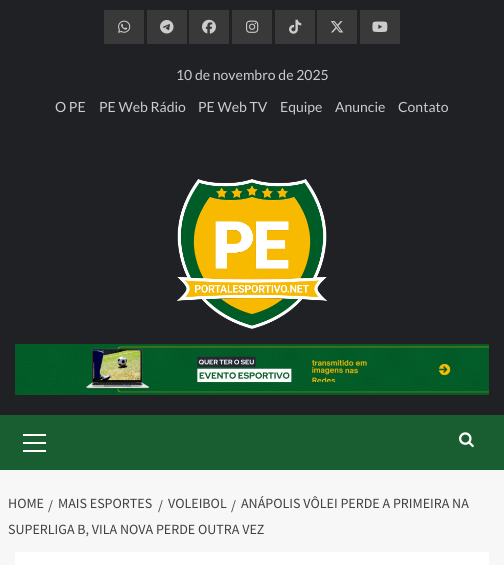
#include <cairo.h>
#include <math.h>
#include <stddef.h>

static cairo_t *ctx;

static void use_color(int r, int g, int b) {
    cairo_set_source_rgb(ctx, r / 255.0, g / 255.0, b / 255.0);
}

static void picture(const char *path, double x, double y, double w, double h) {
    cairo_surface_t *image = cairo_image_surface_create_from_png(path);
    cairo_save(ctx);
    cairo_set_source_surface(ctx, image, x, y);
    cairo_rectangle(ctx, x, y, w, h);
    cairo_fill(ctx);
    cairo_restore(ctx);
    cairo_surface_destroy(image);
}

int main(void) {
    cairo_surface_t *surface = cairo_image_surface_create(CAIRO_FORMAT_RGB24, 504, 565);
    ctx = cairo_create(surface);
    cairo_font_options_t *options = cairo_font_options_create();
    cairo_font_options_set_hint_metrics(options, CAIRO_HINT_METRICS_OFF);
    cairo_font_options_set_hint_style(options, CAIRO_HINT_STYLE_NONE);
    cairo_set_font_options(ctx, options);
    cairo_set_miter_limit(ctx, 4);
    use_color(247, 247, 247);
    cairo_paint(ctx);
    use_color(31, 33, 37);
    cairo_rectangle(ctx, 0, 0, 504, 415);
    cairo_fill(ctx);
    use_color(57, 57, 57);
    cairo_rectangle(ctx, 104, 10, 40, 34);
    cairo_fill(ctx);
    picture("img1.png", 118, 20, 13, 13);
    cairo_rectangle(ctx, 147, 10, 40, 34);
    cairo_fill(ctx);
    picture("img2.png", 160, 20, 14, 14);
    cairo_rectangle(ctx, 189, 10, 40, 34);
    cairo_fill(ctx);
    picture("img3.png", 202, 19, 14, 15);
    cairo_rectangle(ctx, 232, 10, 40, 34);
    cairo_fill(ctx);
    picture("img4.png", 246, 20, 13, 13);
    cairo_rectangle(ctx, 275, 10, 40, 34);
    cairo_fill(ctx);
    picture("img5.png", 289, 19, 13, 15);
    cairo_rectangle(ctx, 317, 10, 40, 34);
    cairo_fill(ctx);
    picture("img6.png", 330, 21, 14, 12);
    cairo_rectangle(ctx, 360, 10, 40, 34);
    cairo_fill(ctx);
    picture("img7.png", 372, 21, 16, 11);
    cairo_select_font_face(ctx, "Lato", CAIRO_FONT_SLANT_NORMAL, CAIRO_FONT_WEIGHT_NORMAL);
    cairo_set_font_size(ctx, 14);
    use_color(204, 204, 204);
    cairo_move_to(ctx, 176, 80);
    cairo_show_text(ctx, "10 de novembro de 2025");
    cairo_move_to(ctx, 55, 112);
    cairo_show_text(ctx, "O PE");
    cairo_move_to(ctx, 99, 112);
    cairo_show_text(ctx, "PE Web Rádio");
    cairo_move_to(ctx, 198, 112);
    cairo_show_text(ctx, "PE Web TV");
    cairo_move_to(ctx, 280, 112);
    cairo_show_text(ctx, "Equipe");
    cairo_move_to(ctx, 335, 112);
    cairo_show_text(ctx, "Anuncie");
    cairo_move_to(ctx, 398, 112);
    cairo_show_text(ctx, "Contato");
    picture("img8.png", 177, 179, 150, 150);
    picture("img9.png", 15, 344, 474, 51);
    use_color(25, 94, 48);
    cairo_rectangle(ctx, 0, 415, 504, 55);
    cairo_fill(ctx);
    use_color(255, 255, 255);
    cairo_rectangle(ctx, 23, 442, 23, 2);
    cairo_fill(ctx);
    cairo_rectangle(ctx, 23, 434, 23, 2);
    cairo_fill(ctx);
    cairo_rectangle(ctx, 23, 450, 23, 2);
    cairo_fill(ctx);
    picture("img10.png", 459, 432, 15, 16);
    cairo_select_font_face(ctx, "Source Sans Pro", CAIRO_FONT_SLANT_NORMAL, CAIRO_FONT_WEIGHT_NORMAL);
    use_color(64, 64, 64);
    cairo_move_to(ctx, 231, 510);
    cairo_show_text(ctx, "/");
    cairo_move_to(ctx, 241, 508);
    cairo_show_text(ctx, "ANÁPOLIS VÔLEI PERDE A PRIMEIRA NA");
    cairo_move_to(ctx, 8, 534);
    cairo_show_text(ctx, "SUPERLIGA B, VILA NOVA PERDE OUTRA VEZ");
    cairo_move_to(ctx, 8, 508);
    cairo_show_text(ctx, "HOME");
    cairo_move_to(ctx, 48, 510);
    cairo_show_text(ctx, "/");
    cairo_move_to(ctx, 58, 508);
    cairo_show_text(ctx, "MAIS ESPORTES");
    cairo_move_to(ctx, 158, 510);
    cairo_show_text(ctx, "/");
    cairo_move_to(ctx, 168, 508);
    cairo_show_text(ctx, "VOLEIBOL");
    use_color(255, 255, 255);
    cairo_rectangle(ctx, 15, 552, 474, 13);
    cairo_fill(ctx);
    cairo_surface_write_to_png(surface, "result.png");
    cairo_font_options_destroy(options);
    cairo_destroy(ctx);
    cairo_surface_destroy(surface);
    return 0;
}
